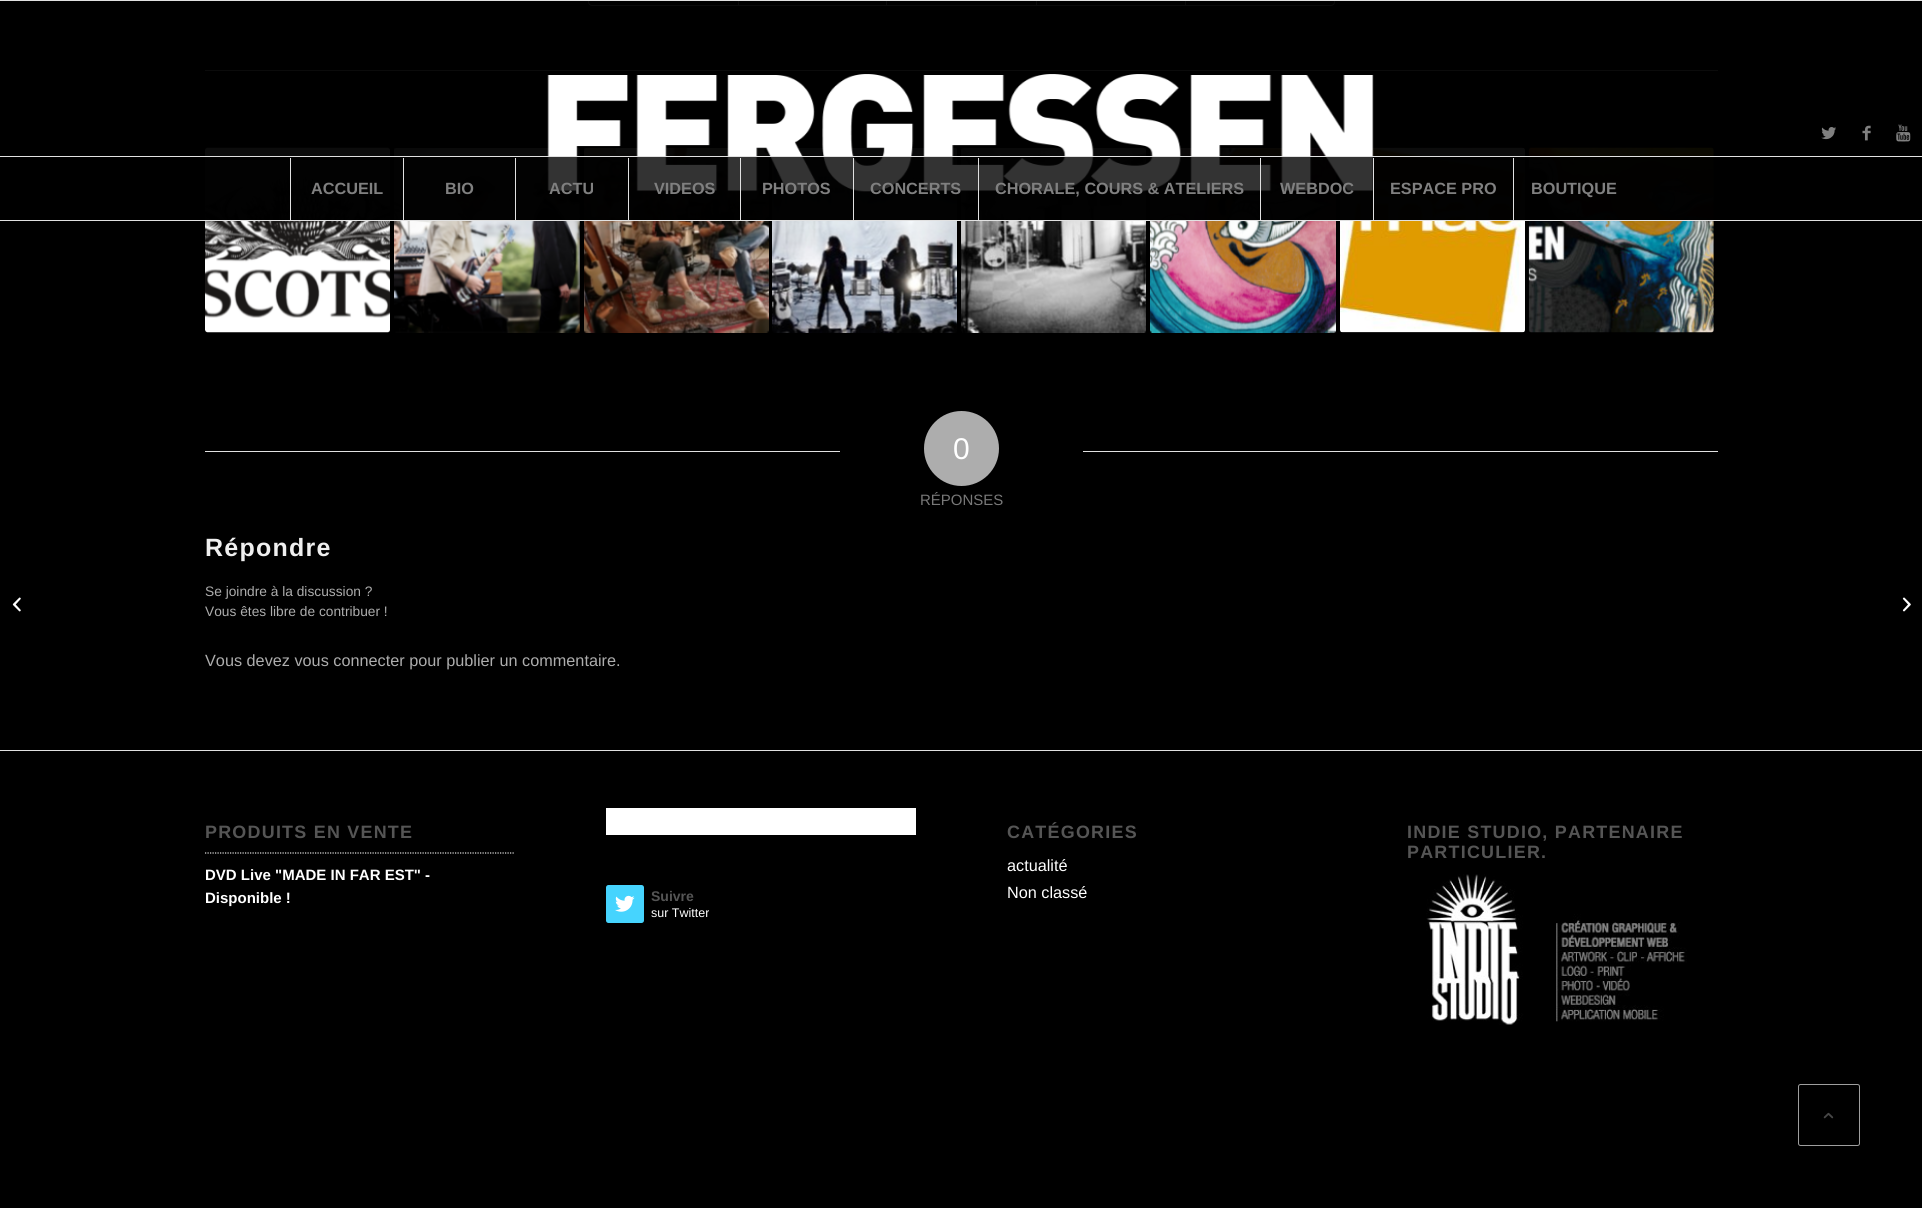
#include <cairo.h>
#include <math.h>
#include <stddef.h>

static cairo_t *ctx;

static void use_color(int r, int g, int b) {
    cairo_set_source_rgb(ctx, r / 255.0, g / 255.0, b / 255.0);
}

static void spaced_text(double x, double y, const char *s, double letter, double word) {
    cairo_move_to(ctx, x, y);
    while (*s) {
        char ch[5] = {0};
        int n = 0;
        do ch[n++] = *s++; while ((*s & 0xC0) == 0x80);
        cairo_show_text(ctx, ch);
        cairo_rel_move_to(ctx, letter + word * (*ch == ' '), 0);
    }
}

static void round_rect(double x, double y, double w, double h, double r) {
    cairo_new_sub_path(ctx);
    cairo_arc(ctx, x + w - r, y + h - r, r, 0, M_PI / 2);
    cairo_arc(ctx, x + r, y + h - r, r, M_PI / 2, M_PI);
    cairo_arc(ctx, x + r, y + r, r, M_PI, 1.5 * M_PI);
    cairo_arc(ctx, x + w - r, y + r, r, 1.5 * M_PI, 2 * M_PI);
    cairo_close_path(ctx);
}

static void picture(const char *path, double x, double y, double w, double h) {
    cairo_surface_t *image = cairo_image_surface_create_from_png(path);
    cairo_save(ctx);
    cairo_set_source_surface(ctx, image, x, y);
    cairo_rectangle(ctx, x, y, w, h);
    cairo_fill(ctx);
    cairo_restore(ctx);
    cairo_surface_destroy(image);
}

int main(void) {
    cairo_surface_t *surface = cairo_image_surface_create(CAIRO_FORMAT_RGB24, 1922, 1208);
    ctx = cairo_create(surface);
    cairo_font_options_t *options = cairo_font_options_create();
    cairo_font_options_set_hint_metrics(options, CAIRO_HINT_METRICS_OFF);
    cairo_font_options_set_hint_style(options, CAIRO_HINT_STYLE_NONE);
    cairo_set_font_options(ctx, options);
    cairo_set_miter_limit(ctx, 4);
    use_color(0, 0, 0);
    cairo_paint(ctx);
    round_rect(588.5, -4.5, 746, 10, 3.5);
    use_color(225, 225, 225);
    cairo_set_line_width(ctx, 1);
    cairo_stroke(ctx);
    cairo_rectangle(ctx, 738, 0, 1, 5);
    cairo_fill(ctx);
    cairo_rectangle(ctx, 886, 0, 1, 5);
    cairo_fill(ctx);
    cairo_rectangle(ctx, 1036, 0, 1, 5);
    cairo_fill(ctx);
    cairo_rectangle(ctx, 1185, 0, 1, 5);
    cairo_fill(ctx);
    cairo_rectangle(ctx, 205, 70, 1513, 1);
    cairo_fill(ctx);
    picture("img6.png", 205, 147, 185, 186);
    picture("img7.png", 394, 148, 186, 185);
    picture("img8.png", 584, 148, 185, 185);
    picture("img9.png", 772, 148, 185, 185);
    picture("img10.png", 961, 148, 185, 185);
    picture("img11.png", 1150, 148, 186, 185);
    picture("img12.png", 1340, 147, 185, 186);
    picture("img13.png", 1528, 147, 186, 186);
    cairo_set_source_rgba(ctx, 0, 0, 0, 0.95);
    cairo_rectangle(ctx, 205, 1, 1513, 219);
    cairo_fill(ctx);
    use_color(225, 225, 225);
    cairo_rectangle(ctx, 0, 0, 1922, 1);
    cairo_fill(ctx);
    cairo_rectangle(ctx, 0, 220, 1922, 1);
    cairo_fill(ctx);
    picture("img1.png", 547, 74, 827, 118);
    picture("img2.png", 1821, 127, 15, 13);
    picture("img3.png", 1862, 125, 9, 16);
    picture("img4.png", 1896, 124, 15, 18);
    cairo_set_source_rgba(ctx, 0, 0, 0, 0.8);
    cairo_rectangle(ctx, 205, 157, 1509, 63);
    cairo_fill(ctx);
    use_color(225, 225, 225);
    cairo_rectangle(ctx, 0, 156, 1922, 1);
    cairo_fill(ctx);
    cairo_rectangle(ctx, 290, 158, 1, 62);
    cairo_fill(ctx);
    cairo_select_font_face(ctx, "Liberation Sans", CAIRO_FONT_SLANT_NORMAL, CAIRO_FONT_WEIGHT_BOLD);
    cairo_set_font_size(ctx, 16.25);
    use_color(128, 128, 128);
    cairo_move_to(ctx, 311, 194);
    cairo_show_text(ctx, "ACCUEIL");
    use_color(225, 225, 225);
    cairo_rectangle(ctx, 403, 158, 1, 62);
    cairo_fill(ctx);
    use_color(128, 128, 128);
    cairo_move_to(ctx, 445, 194);
    cairo_show_text(ctx, "BIO");
    use_color(225, 225, 225);
    cairo_rectangle(ctx, 515, 158, 1, 62);
    cairo_fill(ctx);
    use_color(128, 128, 128);
    cairo_move_to(ctx, 549, 194);
    cairo_show_text(ctx, "ACTU");
    use_color(225, 225, 225);
    cairo_rectangle(ctx, 628, 158, 1, 62);
    cairo_fill(ctx);
    use_color(128, 128, 128);
    cairo_move_to(ctx, 654, 194);
    cairo_show_text(ctx, "VIDEOS");
    use_color(225, 225, 225);
    cairo_rectangle(ctx, 740, 158, 1, 62);
    cairo_fill(ctx);
    use_color(128, 128, 128);
    cairo_move_to(ctx, 762, 194);
    cairo_show_text(ctx, "PHOTOS");
    use_color(225, 225, 225);
    cairo_rectangle(ctx, 853, 158, 1, 62);
    cairo_fill(ctx);
    use_color(128, 128, 128);
    cairo_move_to(ctx, 870, 194);
    cairo_show_text(ctx, "CONCERTS");
    use_color(225, 225, 225);
    cairo_rectangle(ctx, 978, 158, 1, 62);
    cairo_fill(ctx);
    use_color(128, 128, 128);
    cairo_move_to(ctx, 995, 194);
    cairo_show_text(ctx, "CHORALE, COURS & ATELIERS");
    use_color(225, 225, 225);
    cairo_rectangle(ctx, 1260, 158, 1, 62);
    cairo_fill(ctx);
    use_color(128, 128, 128);
    cairo_move_to(ctx, 1280, 194);
    cairo_show_text(ctx, "WEBDOC");
    use_color(225, 225, 225);
    cairo_rectangle(ctx, 1373, 158, 1, 62);
    cairo_fill(ctx);
    use_color(128, 128, 128);
    cairo_move_to(ctx, 1390, 194);
    cairo_show_text(ctx, "ESPACE PRO");
    use_color(225, 225, 225);
    cairo_rectangle(ctx, 1513, 158, 1, 62);
    cairo_fill(ctx);
    use_color(128, 128, 128);
    cairo_move_to(ctx, 1531, 194);
    cairo_show_text(ctx, "BOUTIQUE");
    picture("img5.png", 12, 597, 9, 15);
    use_color(225, 225, 225);
    cairo_rectangle(ctx, 205, 451, 635, 1);
    cairo_fill(ctx);
    use_color(173, 173, 173);
    cairo_arc(ctx, 961.5, 448.5, 37.5, 0, 2 * M_PI);
    cairo_fill(ctx);
    cairo_select_font_face(ctx, "Liberation Sans", CAIRO_FONT_SLANT_NORMAL, CAIRO_FONT_WEIGHT_NORMAL);
    cairo_set_font_size(ctx, 30);
    use_color(255, 255, 255);
    cairo_move_to(ctx, 953, 459);
    cairo_show_text(ctx, "0");
    use_color(225, 225, 225);
    cairo_rectangle(ctx, 1083, 451, 635, 1);
    cairo_fill(ctx);
    cairo_set_font_size(ctx, 15);
    use_color(120, 120, 120);
    cairo_move_to(ctx, 920, 505);
    cairo_show_text(ctx, "RÉPONSES");
    cairo_select_font_face(ctx, "Liberation Sans", CAIRO_FONT_SLANT_NORMAL, CAIRO_FONT_WEIGHT_BOLD);
    cairo_set_font_size(ctx, 25);
    use_color(239, 239, 239);
    spaced_text(205, 556, "Répondre", 1.25, 0);
    cairo_select_font_face(ctx, "Liberation Sans", CAIRO_FONT_SLANT_NORMAL, CAIRO_FONT_WEIGHT_NORMAL);
    cairo_set_font_size(ctx, 13.75);
    use_color(173, 173, 173);
    cairo_move_to(ctx, 205, 596);
    cairo_show_text(ctx, "Se joindre à la discussion ?");
    cairo_move_to(ctx, 205, 616);
    cairo_show_text(ctx, "Vous êtes libre de contribuer !");
    cairo_set_font_size(ctx, 16.25);
    cairo_move_to(ctx, 205, 666);
    cairo_show_text(ctx, "Vous devez vous connecter pour publier un commentaire.");
    use_color(225, 225, 225);
    cairo_rectangle(ctx, 0, 750, 1922, 1);
    cairo_fill(ctx);
    cairo_select_font_face(ctx, "Liberation Sans", CAIRO_FONT_SLANT_NORMAL, CAIRO_FONT_WEIGHT_BOLD);
    cairo_set_font_size(ctx, 17.9);
    use_color(85, 85, 85);
    spaced_text(205, 838, "PRODUITS EN VENTE", 1.25, 0);
    cairo_new_path(ctx);
    cairo_move_to(ctx, 205, 853);
    cairo_line_to(ctx, 515, 853);
    use_color(225, 225, 225);
    cairo_set_line_width(ctx, 1.2);
    cairo_set_dash(ctx, (double[]){1.25, 1.25}, 2, 0);
    cairo_stroke(ctx);
    cairo_set_font_size(ctx, 15);
    use_color(255, 255, 255);
    cairo_move_to(ctx, 205, 880);
    cairo_show_text(ctx, "DVD Live \"MADE IN FAR EST\" -");
    cairo_move_to(ctx, 205, 903);
    cairo_show_text(ctx, "Disponible !");
    cairo_set_font_size(ctx, 17.9);
    use_color(85, 85, 85);
    spaced_text(1007, 838, "CATÉGORIES", 1.25, 0);
    cairo_select_font_face(ctx, "Liberation Sans", CAIRO_FONT_SLANT_NORMAL, CAIRO_FONT_WEIGHT_NORMAL);
    cairo_set_font_size(ctx, 16.25);
    use_color(255, 255, 255);
    cairo_move_to(ctx, 1007, 871);
    cairo_show_text(ctx, "actualité");
    cairo_move_to(ctx, 1007, 898);
    cairo_show_text(ctx, "Non classé");
    cairo_select_font_face(ctx, "Liberation Sans", CAIRO_FONT_SLANT_NORMAL, CAIRO_FONT_WEIGHT_BOLD);
    cairo_set_font_size(ctx, 17.9);
    use_color(85, 85, 85);
    spaced_text(1407, 838, "INDIE STUDIO, PARTENAIRE", 1.25, 0);
    spaced_text(1407, 858, "PARTICULIER.", 1.25, 0);
    picture("img14.png", 1426, 874, 261, 151);
    use_color(255, 255, 255);
    cairo_rectangle(ctx, 606, 808, 310, 27);
    cairo_fill(ctx);
    use_color(70, 212, 254);
    round_rect(606, 885, 38, 38, 2.5);
    cairo_fill(ctx);
    picture("img15.png", 615, 895, 20, 17);
    cairo_set_font_size(ctx, 14);
    use_color(85, 85, 85);
    cairo_move_to(ctx, 651, 901);
    cairo_show_text(ctx, "Suivre");
    cairo_select_font_face(ctx, "Liberation Sans", CAIRO_FONT_SLANT_NORMAL, CAIRO_FONT_WEIGHT_NORMAL);
    cairo_set_font_size(ctx, 12.5);
    use_color(255, 255, 255);
    cairo_move_to(ctx, 651, 917);
    cairo_show_text(ctx, "sur Twitter");
    picture("img16.png", 1902, 597, 9, 15);
    round_rect(1798.5, 1084.5, 61, 61, 2);
    use_color(158, 158, 158);
    cairo_set_line_width(ctx, 1);
    cairo_set_dash(ctx, NULL, 0, 0);
    cairo_stroke(ctx);
    picture("img17.png", 1823, 1112, 11, 7);
    cairo_surface_write_to_png(surface, "result.png");
    cairo_font_options_destroy(options);
    cairo_destroy(ctx);
    cairo_surface_destroy(surface);
    return 0;
}
